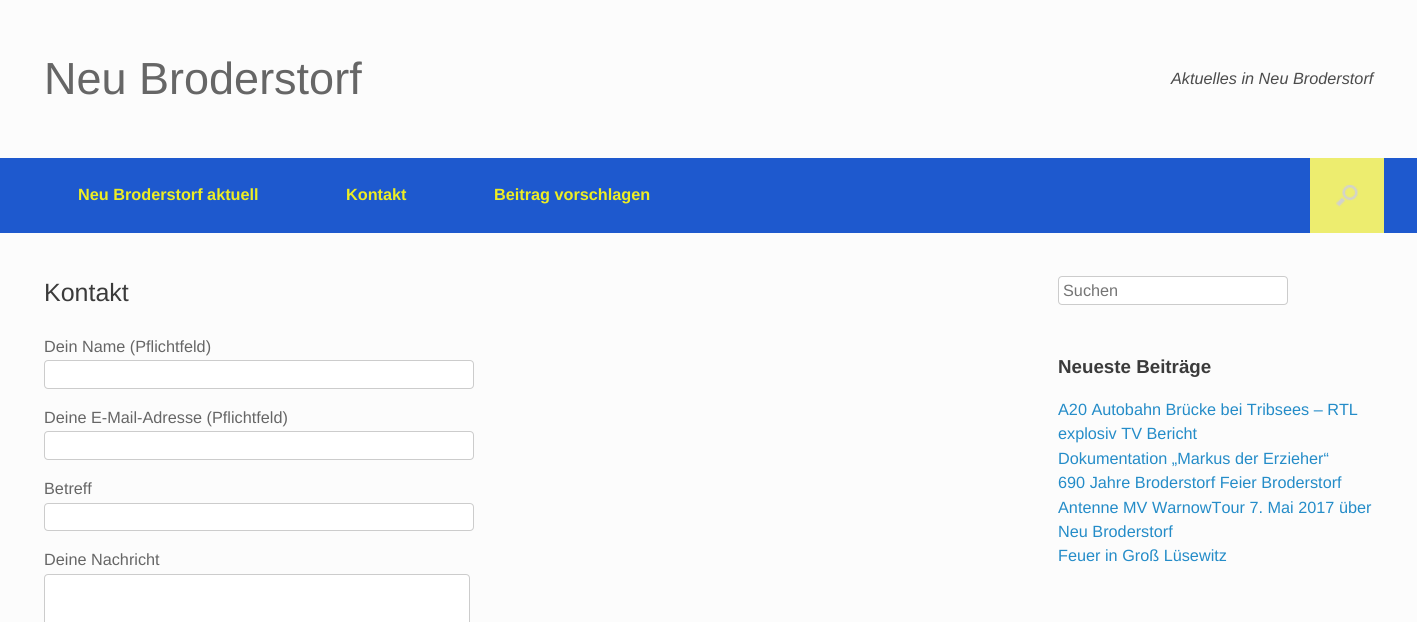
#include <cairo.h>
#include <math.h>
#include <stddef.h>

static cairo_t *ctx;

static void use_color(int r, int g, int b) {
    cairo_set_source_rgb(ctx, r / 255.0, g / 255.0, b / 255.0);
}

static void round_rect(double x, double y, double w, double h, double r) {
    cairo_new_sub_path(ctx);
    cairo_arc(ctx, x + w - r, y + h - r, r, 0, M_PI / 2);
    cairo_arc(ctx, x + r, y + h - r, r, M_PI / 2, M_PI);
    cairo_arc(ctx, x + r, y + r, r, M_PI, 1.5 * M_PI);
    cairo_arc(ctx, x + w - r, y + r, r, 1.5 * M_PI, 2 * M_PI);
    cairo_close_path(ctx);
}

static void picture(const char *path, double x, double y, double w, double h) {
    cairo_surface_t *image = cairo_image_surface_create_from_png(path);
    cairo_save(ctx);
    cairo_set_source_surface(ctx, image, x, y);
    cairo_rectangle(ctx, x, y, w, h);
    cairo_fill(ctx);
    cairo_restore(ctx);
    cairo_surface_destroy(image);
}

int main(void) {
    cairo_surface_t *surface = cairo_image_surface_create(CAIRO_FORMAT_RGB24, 1417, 622);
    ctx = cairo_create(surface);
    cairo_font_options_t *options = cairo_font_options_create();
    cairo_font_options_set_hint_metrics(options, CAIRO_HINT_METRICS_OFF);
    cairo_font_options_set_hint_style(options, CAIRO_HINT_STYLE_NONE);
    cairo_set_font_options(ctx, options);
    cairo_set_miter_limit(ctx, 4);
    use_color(252, 252, 252);
    cairo_paint(ctx);
    cairo_select_font_face(ctx, "Liberation Sans", CAIRO_FONT_SLANT_NORMAL, CAIRO_FONT_WEIGHT_NORMAL);
    cairo_set_font_size(ctx, 45);
    use_color(102, 102, 102);
    cairo_move_to(ctx, 44, 94);
    cairo_show_text(ctx, "Neu Broderstorf");
    cairo_select_font_face(ctx, "Liberation Sans", CAIRO_FONT_SLANT_ITALIC, CAIRO_FONT_WEIGHT_NORMAL);
    cairo_set_font_size(ctx, 16.25);
    use_color(75, 75, 75);
    cairo_move_to(ctx, 1171, 84);
    cairo_show_text(ctx, "Aktuelles in Neu Broderstorf");
    use_color(30, 89, 206);
    cairo_rectangle(ctx, 0, 158, 1417, 75);
    cairo_fill(ctx);
    cairo_select_font_face(ctx, "Liberation Sans", CAIRO_FONT_SLANT_NORMAL, CAIRO_FONT_WEIGHT_BOLD);
    use_color(237, 237, 35);
    cairo_move_to(ctx, 78, 200);
    cairo_show_text(ctx, "Neu Broderstorf aktuell");
    cairo_move_to(ctx, 346, 200);
    cairo_show_text(ctx, "Kontakt");
    cairo_move_to(ctx, 494, 200);
    cairo_show_text(ctx, "Beitrag vorschlagen");
    use_color(237, 237, 111);
    cairo_rectangle(ctx, 1310, 158, 74, 75);
    cairo_fill(ctx);
    picture("img1.png", 1336, 185, 22, 22);
    cairo_select_font_face(ctx, "Liberation Sans", CAIRO_FONT_SLANT_NORMAL, CAIRO_FONT_WEIGHT_NORMAL);
    cairo_set_font_size(ctx, 25);
    use_color(59, 59, 59);
    cairo_move_to(ctx, 44, 301);
    cairo_show_text(ctx, "Kontakt");
    cairo_set_font_size(ctx, 16.25);
    use_color(102, 102, 102);
    cairo_move_to(ctx, 44, 352);
    cairo_show_text(ctx, "Dein Name (Pflichtfeld)");
    use_color(255, 255, 255);
    round_rect(44.5, 360.5, 429, 28, 3.5);
    cairo_fill_preserve(ctx);
    use_color(204, 204, 204);
    cairo_set_line_width(ctx, 1);
    cairo_stroke(ctx);
    use_color(102, 102, 102);
    cairo_move_to(ctx, 44, 423);
    cairo_show_text(ctx, "Deine E-Mail-Adresse (Pflichtfeld)");
    use_color(255, 255, 255);
    round_rect(44.5, 431.5, 429, 28, 3.5);
    cairo_fill_preserve(ctx);
    use_color(204, 204, 204);
    cairo_stroke(ctx);
    use_color(102, 102, 102);
    cairo_move_to(ctx, 44, 494);
    cairo_show_text(ctx, "Betreff");
    use_color(255, 255, 255);
    round_rect(44.5, 503.5, 429, 27, 3.5);
    cairo_fill_preserve(ctx);
    use_color(204, 204, 204);
    cairo_stroke(ctx);
    use_color(102, 102, 102);
    cairo_move_to(ctx, 44, 565);
    cairo_show_text(ctx, "Deine Nachricht");
    use_color(255, 255, 255);
    round_rect(44.5, 574.5, 425, 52, 3.5);
    cairo_fill_preserve(ctx);
    use_color(204, 204, 204);
    cairo_stroke(ctx);
    use_color(255, 255, 255);
    round_rect(1058.5, 276.5, 229, 28, 3.5);
    cairo_fill_preserve(ctx);
    use_color(204, 204, 204);
    cairo_stroke(ctx);
    use_color(117, 117, 117);
    cairo_move_to(ctx, 1063, 296);
    cairo_show_text(ctx, "Suchen");
    cairo_select_font_face(ctx, "Liberation Sans", CAIRO_FONT_SLANT_NORMAL, CAIRO_FONT_WEIGHT_BOLD);
    cairo_set_font_size(ctx, 18.75);
    use_color(59, 59, 59);
    cairo_move_to(ctx, 1058, 373);
    cairo_show_text(ctx, "Neueste Beiträge");
    cairo_select_font_face(ctx, "Liberation Sans", CAIRO_FONT_SLANT_NORMAL, CAIRO_FONT_WEIGHT_NORMAL);
    cairo_set_font_size(ctx, 16.25);
    use_color(36, 140, 200);
    cairo_move_to(ctx, 1058, 415);
    cairo_show_text(ctx, "A20 Autobahn Brücke bei Tribsees – RTL");
    cairo_move_to(ctx, 1058, 439);
    cairo_show_text(ctx, "explosiv TV Bericht");
    cairo_move_to(ctx, 1058, 464);
    cairo_show_text(ctx, "Dokumentation „Markus der Erzieher“");
    cairo_move_to(ctx, 1058, 488);
    cairo_show_text(ctx, "690 Jahre Broderstorf Feier Broderstorf");
    cairo_move_to(ctx, 1058, 513);
    cairo_show_text(ctx, "Antenne MV WarnowTour 7. Mai 2017 über");
    cairo_move_to(ctx, 1058, 537);
    cairo_show_text(ctx, "Neu Broderstorf");
    cairo_move_to(ctx, 1058, 561);
    cairo_show_text(ctx, "Feuer in Groß Lüsewitz");
    cairo_surface_write_to_png(surface, "result.png");
    cairo_font_options_destroy(options);
    cairo_destroy(ctx);
    cairo_surface_destroy(surface);
    return 0;
}
